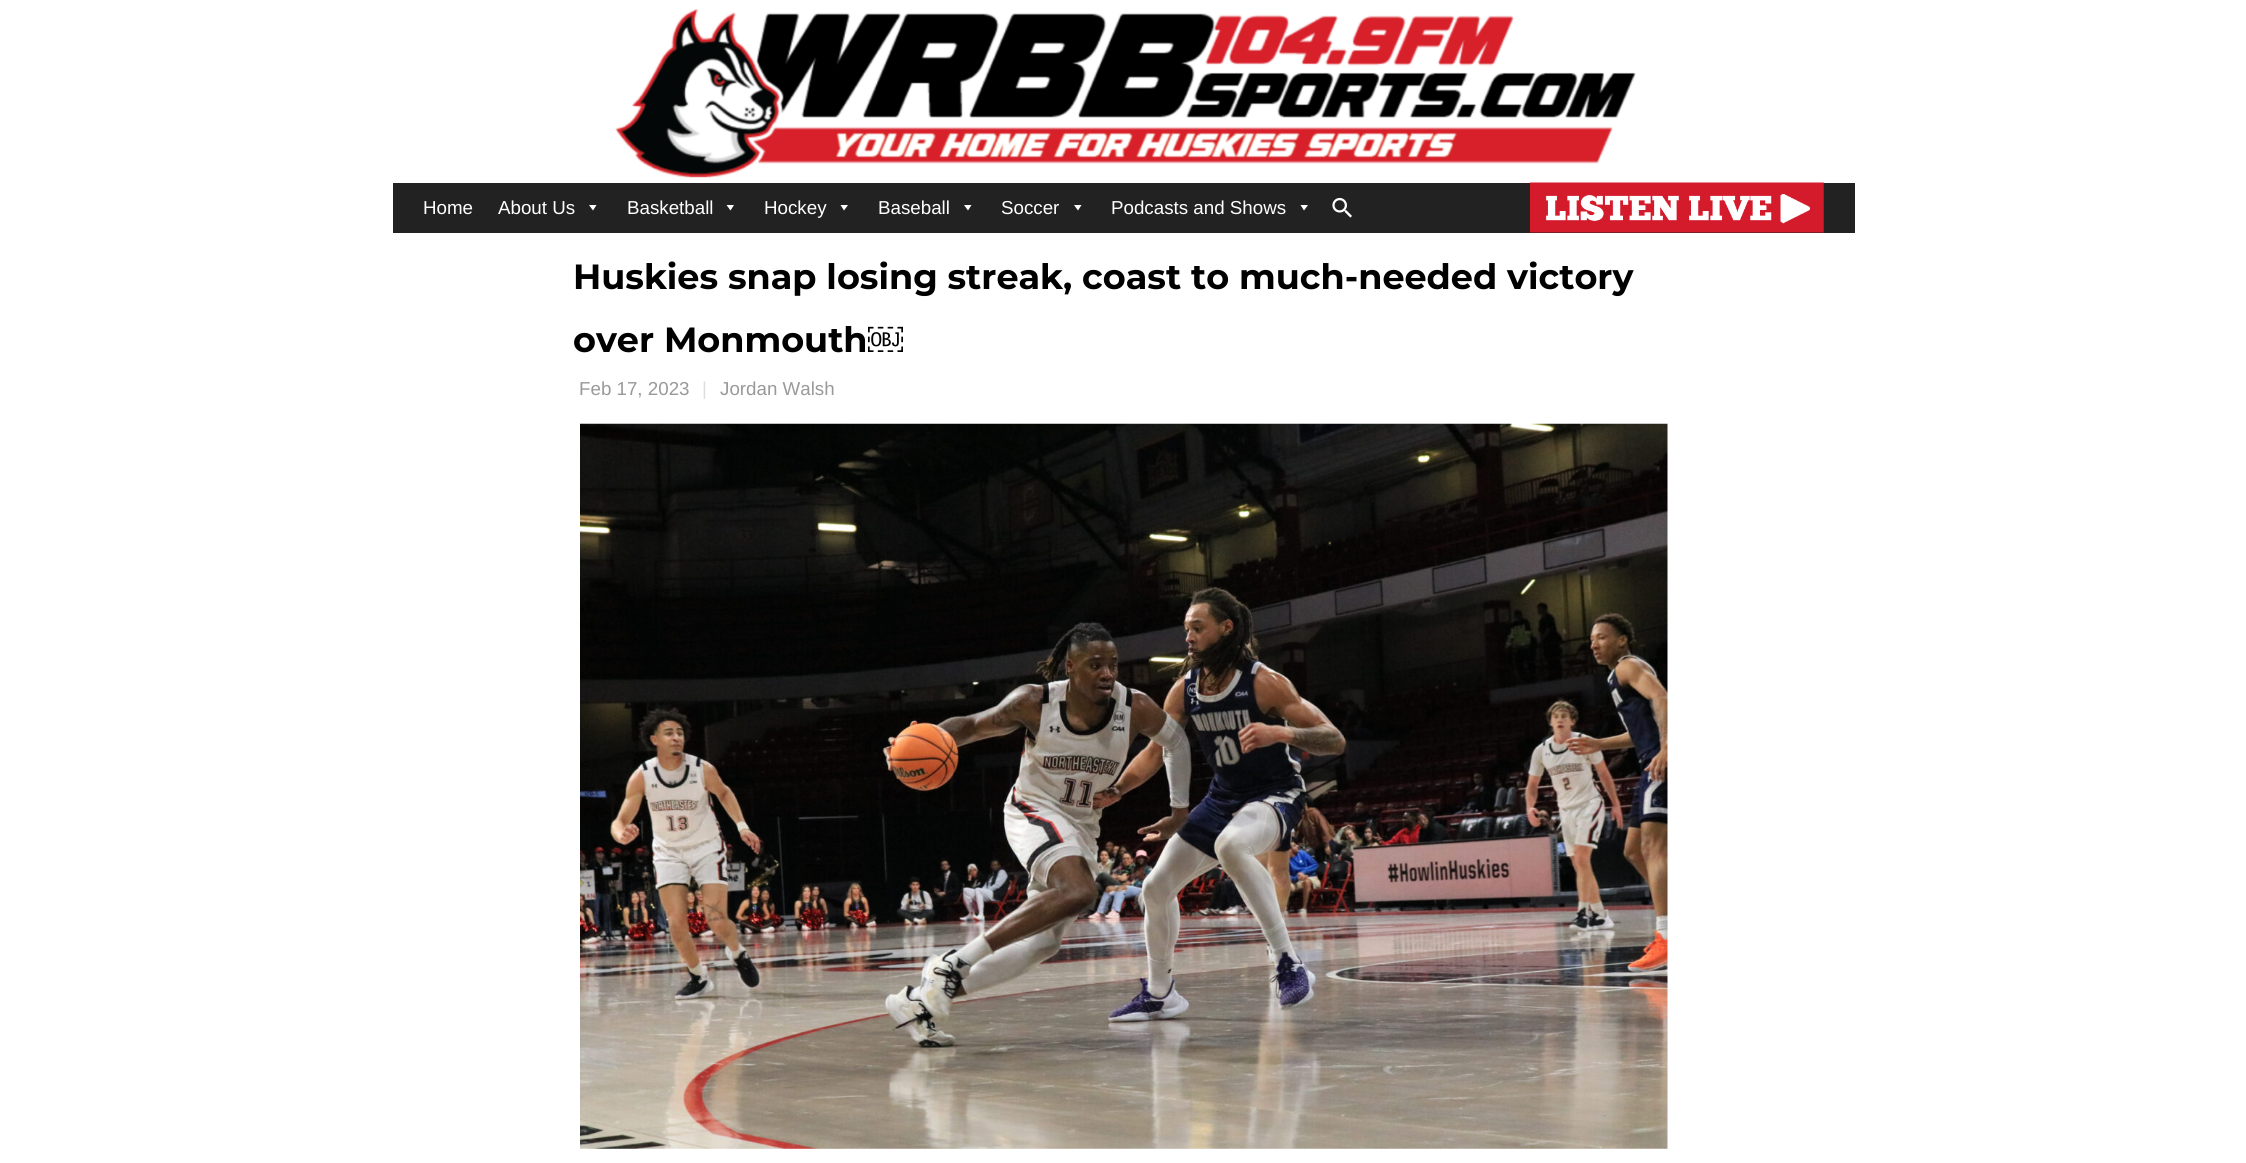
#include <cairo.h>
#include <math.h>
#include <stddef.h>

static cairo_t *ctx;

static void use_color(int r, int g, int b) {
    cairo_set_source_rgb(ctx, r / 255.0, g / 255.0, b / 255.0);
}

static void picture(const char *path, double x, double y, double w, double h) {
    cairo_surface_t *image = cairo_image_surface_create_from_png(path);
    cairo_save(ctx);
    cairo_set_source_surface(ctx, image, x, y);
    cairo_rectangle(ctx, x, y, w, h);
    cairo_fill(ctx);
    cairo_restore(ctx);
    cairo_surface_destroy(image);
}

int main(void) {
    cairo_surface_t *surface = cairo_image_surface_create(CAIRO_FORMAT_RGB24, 2246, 1163);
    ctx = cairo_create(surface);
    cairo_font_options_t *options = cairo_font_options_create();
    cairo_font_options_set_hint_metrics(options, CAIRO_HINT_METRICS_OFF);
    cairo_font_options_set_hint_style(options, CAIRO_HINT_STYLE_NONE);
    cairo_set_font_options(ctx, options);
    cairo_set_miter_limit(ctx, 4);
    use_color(255, 255, 255);
    cairo_paint(ctx);
    picture("img1.png", 615, 9, 1021, 169);
    use_color(34, 34, 34);
    cairo_rectangle(ctx, 393, 183, 1462, 50);
    cairo_fill(ctx);
    cairo_select_font_face(ctx, "Liberation Sans", CAIRO_FONT_SLANT_NORMAL, CAIRO_FONT_WEIGHT_NORMAL);
    cairo_set_font_size(ctx, 18.75);
    use_color(255, 255, 255);
    cairo_move_to(ctx, 423, 214);
    cairo_show_text(ctx, "Home");
    cairo_move_to(ctx, 498, 214);
    cairo_show_text(ctx, "About Us");
    cairo_new_path(ctx);
    cairo_move_to(ctx, 596.5, 205);
    cairo_line_to(ctx, 593, 210.5);
    cairo_line_to(ctx, 589, 205);
    cairo_close_path(ctx);
    cairo_fill(ctx);
    cairo_move_to(ctx, 627, 214);
    cairo_show_text(ctx, "Basketball");
    cairo_new_path(ctx);
    cairo_move_to(ctx, 734, 205);
    cairo_line_to(ctx, 730.5, 210.5);
    cairo_line_to(ctx, 726.5, 205);
    cairo_close_path(ctx);
    cairo_fill(ctx);
    cairo_move_to(ctx, 764, 214);
    cairo_show_text(ctx, "Hockey");
    cairo_new_path(ctx);
    cairo_move_to(ctx, 848, 205);
    cairo_line_to(ctx, 844, 210.5);
    cairo_line_to(ctx, 840.5, 205);
    cairo_close_path(ctx);
    cairo_fill(ctx);
    cairo_move_to(ctx, 878, 214);
    cairo_show_text(ctx, "Baseball");
    cairo_new_path(ctx);
    cairo_move_to(ctx, 971.5, 205);
    cairo_line_to(ctx, 968, 210.5);
    cairo_line_to(ctx, 964, 205);
    cairo_close_path(ctx);
    cairo_fill(ctx);
    cairo_move_to(ctx, 1001, 214);
    cairo_show_text(ctx, "Soccer");
    cairo_new_path(ctx);
    cairo_move_to(ctx, 1081.5, 205);
    cairo_line_to(ctx, 1078, 210.5);
    cairo_line_to(ctx, 1074, 205);
    cairo_close_path(ctx);
    cairo_fill(ctx);
    cairo_move_to(ctx, 1111, 214);
    cairo_show_text(ctx, "Podcasts and Shows");
    cairo_new_path(ctx);
    cairo_move_to(ctx, 1308, 205);
    cairo_line_to(ctx, 1304, 210.5);
    cairo_line_to(ctx, 1300.5, 205);
    cairo_close_path(ctx);
    cairo_fill(ctx);
    picture("img2.png", 1332, 197, 20, 21);
    picture("img3.png", 1530, 182, 294, 51);
    cairo_select_font_face(ctx, "Montserrat", CAIRO_FONT_SLANT_NORMAL, CAIRO_FONT_WEIGHT_BOLD);
    cairo_set_font_size(ctx, 35);
    use_color(0, 0, 0);
    cairo_move_to(ctx, 573, 289);
    cairo_show_text(ctx, "Huskies snap losing streak, coast to much-needed victory");
    cairo_move_to(ctx, 573, 352);
    cairo_show_text(ctx, "over Monmouth");
    cairo_select_font_face(ctx, "Liberation Sans", CAIRO_FONT_SLANT_NORMAL, CAIRO_FONT_WEIGHT_BOLD);
    cairo_move_to(ctx, 868, 352);
    cairo_show_text(ctx, "￼");
    cairo_select_font_face(ctx, "Liberation Sans", CAIRO_FONT_SLANT_NORMAL, CAIRO_FONT_WEIGHT_NORMAL);
    cairo_set_font_size(ctx, 18.75);
    use_color(153, 153, 153);
    cairo_move_to(ctx, 579, 395);
    cairo_show_text(ctx, "Feb 17, 2023");
    use_color(221, 221, 221);
    cairo_move_to(ctx, 702, 395);
    cairo_show_text(ctx, "|");
    use_color(153, 153, 153);
    cairo_move_to(ctx, 720, 395);
    cairo_show_text(ctx, "Jordan Walsh");
    picture("img4.png", 580, 423, 1088, 726);
    cairo_surface_write_to_png(surface, "result.png");
    cairo_font_options_destroy(options);
    cairo_destroy(ctx);
    cairo_surface_destroy(surface);
    return 0;
}
